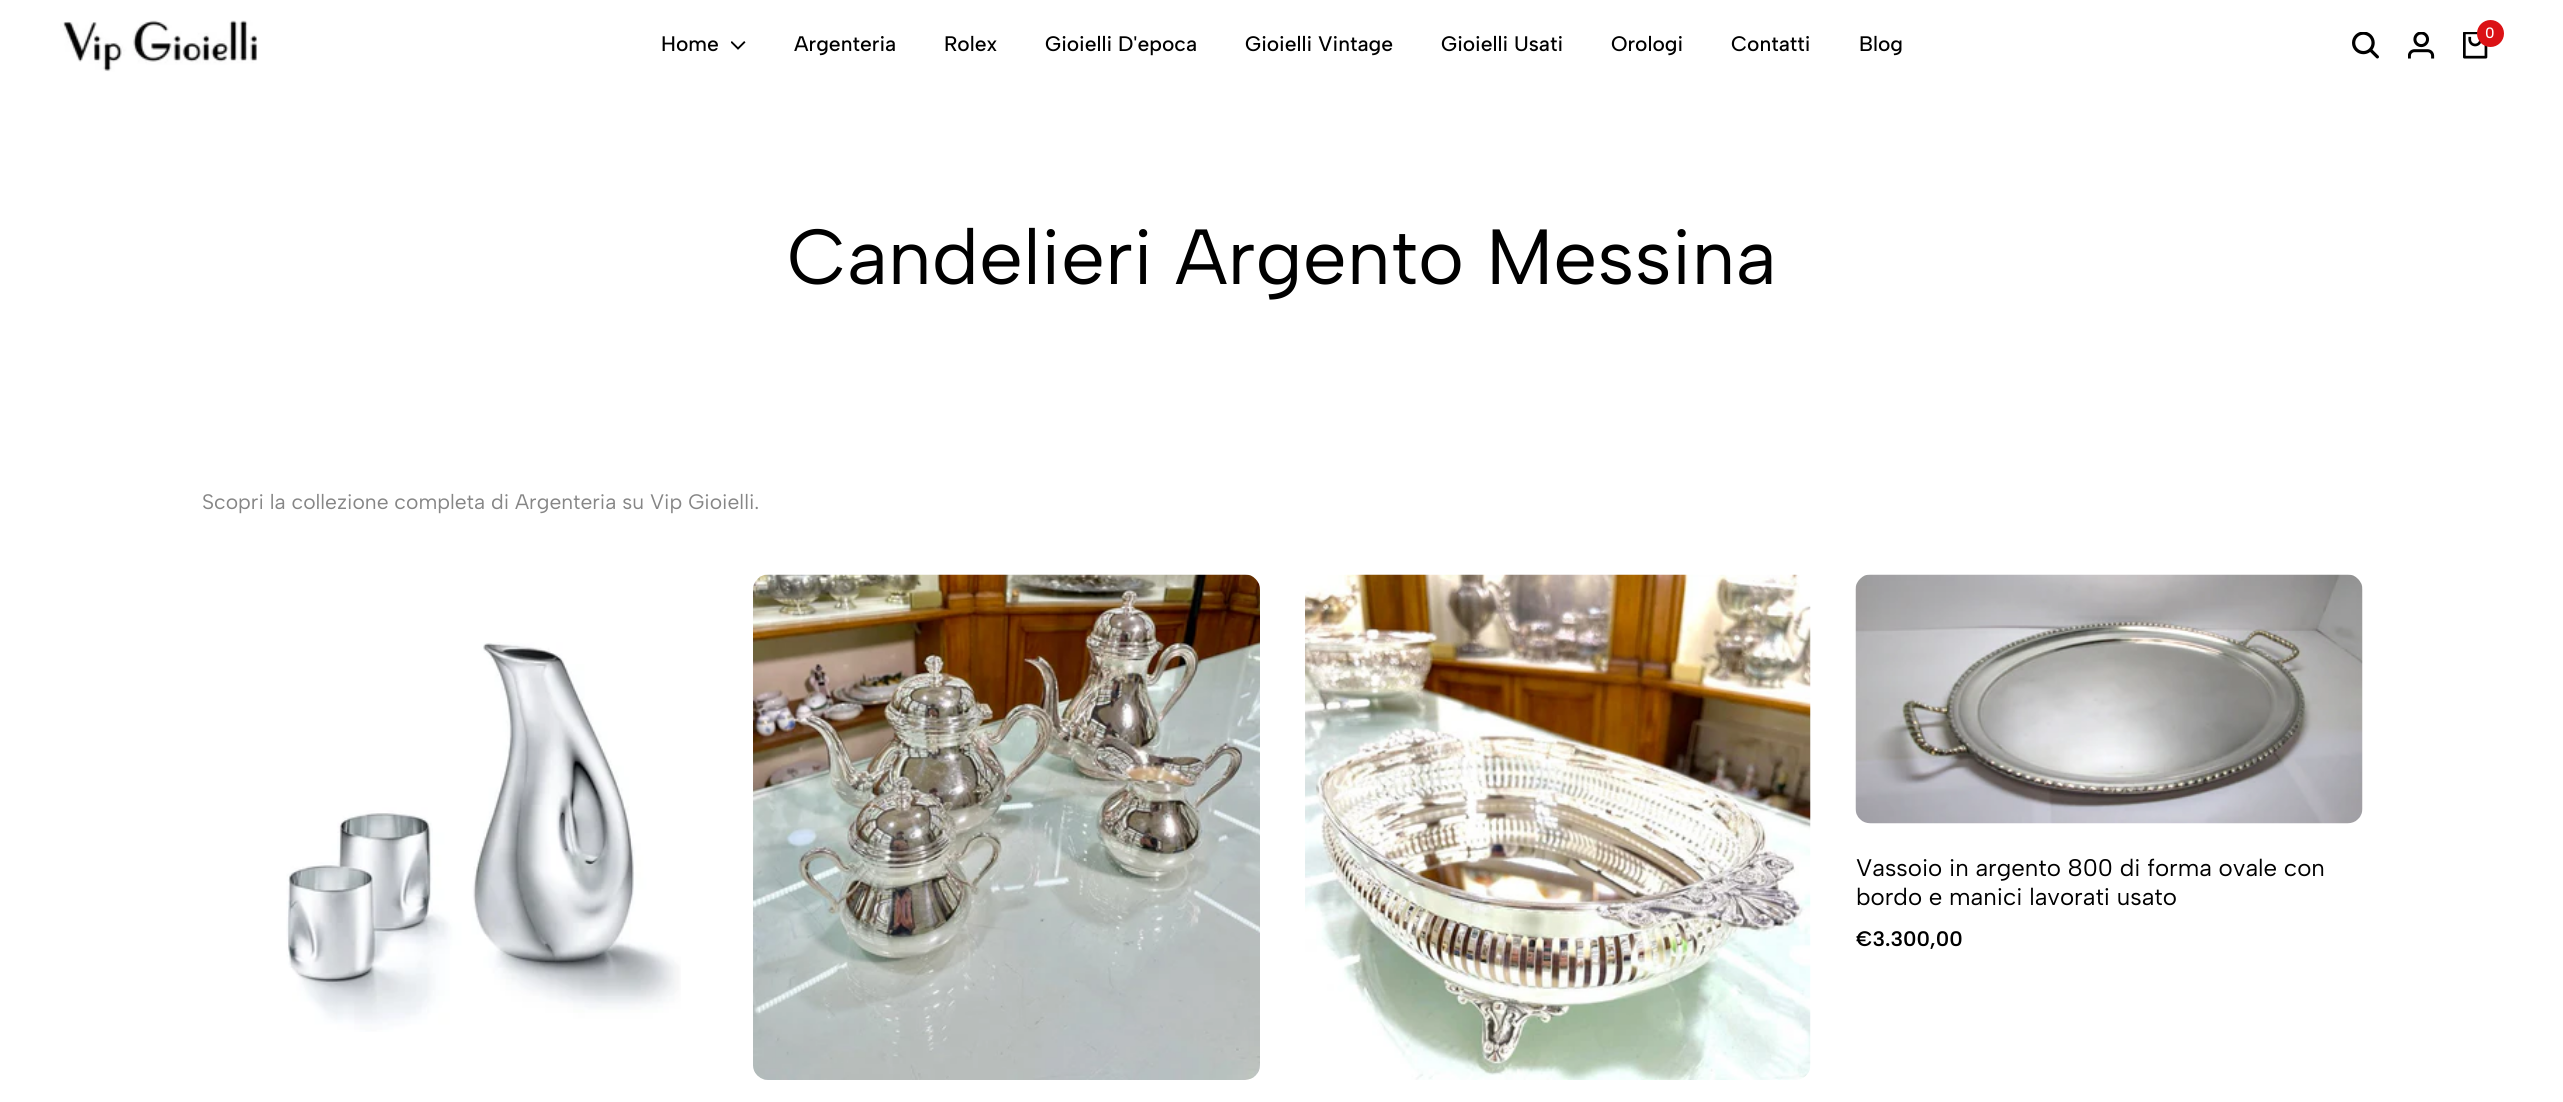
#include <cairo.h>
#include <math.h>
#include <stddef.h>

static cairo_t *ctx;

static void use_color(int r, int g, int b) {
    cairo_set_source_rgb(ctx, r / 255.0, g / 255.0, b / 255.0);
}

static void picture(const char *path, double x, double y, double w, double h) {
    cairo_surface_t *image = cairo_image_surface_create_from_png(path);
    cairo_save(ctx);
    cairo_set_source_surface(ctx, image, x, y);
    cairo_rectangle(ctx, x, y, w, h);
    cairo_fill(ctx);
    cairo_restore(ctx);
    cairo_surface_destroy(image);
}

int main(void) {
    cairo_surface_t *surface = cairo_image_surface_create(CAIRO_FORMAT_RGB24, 2563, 1102);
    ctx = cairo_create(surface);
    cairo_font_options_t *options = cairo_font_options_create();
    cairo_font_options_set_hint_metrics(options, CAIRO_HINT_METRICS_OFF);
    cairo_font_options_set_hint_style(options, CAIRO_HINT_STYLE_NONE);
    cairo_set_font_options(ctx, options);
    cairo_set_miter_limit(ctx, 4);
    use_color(255, 255, 255);
    cairo_paint(ctx);
    picture("img1.png", 60, 20, 198, 52);
    picture("img2.png", 2352, 32, 27, 27);
    picture("img3.png", 2408, 32, 27, 27);
    picture("img4.png", 2463, 32, 25, 27);
    use_color(219, 18, 21);
    cairo_arc(ctx, 2490.5, 33.5, 13.5, 0, 2 * M_PI);
    cairo_fill(ctx);
    cairo_select_font_face(ctx, "Albert Sans Medium", CAIRO_FONT_SLANT_NORMAL, CAIRO_FONT_WEIGHT_NORMAL);
    cairo_set_font_size(ctx, 15);
    use_color(255, 255, 255);
    cairo_move_to(ctx, 2485, 38);
    cairo_show_text(ctx, "0");
    cairo_set_font_size(ctx, 21);
    use_color(0, 0, 0);
    cairo_move_to(ctx, 661, 51);
    cairo_show_text(ctx, "Home");
    picture("img5.png", 731, 41, 15, 9);
    cairo_move_to(ctx, 794, 51);
    cairo_show_text(ctx, "Argenteria");
    cairo_move_to(ctx, 944, 51);
    cairo_show_text(ctx, "Rolex");
    cairo_move_to(ctx, 1045, 51);
    cairo_show_text(ctx, "Gioielli D'epoca");
    cairo_move_to(ctx, 1245, 51);
    cairo_show_text(ctx, "Gioielli Vintage");
    cairo_move_to(ctx, 1441, 51);
    cairo_show_text(ctx, "Gioielli Usati");
    cairo_move_to(ctx, 1611, 51);
    cairo_show_text(ctx, "Orologi");
    cairo_move_to(ctx, 1731, 51);
    cairo_show_text(ctx, "Contatti");
    cairo_move_to(ctx, 1859, 51);
    cairo_show_text(ctx, "Blog");
    cairo_select_font_face(ctx, "Albert Sans", CAIRO_FONT_SLANT_NORMAL, CAIRO_FONT_WEIGHT_NORMAL);
    cairo_set_font_size(ctx, 78);
    cairo_move_to(ctx, 787, 284);
    cairo_show_text(ctx, "Candelieri Argento Messina");
    cairo_set_font_size(ctx, 21);
    use_color(134, 134, 134);
    cairo_move_to(ctx, 202, 509);
    cairo_show_text(ctx, "Scopri la collezione completa di Argenteria su Vip Gioielli.");
    picture("img6.png", 286, 642, 395, 390);
    picture("img7.png", 753, 574, 507, 506);
    picture("img8.png", 1305, 574, 506, 506);
    picture("img9.png", 1855, 574, 508, 250);
    cairo_set_font_size(ctx, 24);
    use_color(0, 0, 0);
    cairo_move_to(ctx, 1856, 876);
    cairo_show_text(ctx, "Vassoio in argento 800 di forma ovale con");
    cairo_move_to(ctx, 1856, 905);
    cairo_show_text(ctx, "bordo e manici lavorati usato");
    cairo_select_font_face(ctx, "Albert Sans SemiBold", CAIRO_FONT_SLANT_NORMAL, CAIRO_FONT_WEIGHT_NORMAL);
    cairo_set_font_size(ctx, 21);
    cairo_move_to(ctx, 1856, 946);
    cairo_show_text(ctx, "€3.300,00");
    cairo_surface_write_to_png(surface, "result.png");
    cairo_font_options_destroy(options);
    cairo_destroy(ctx);
    cairo_surface_destroy(surface);
    return 0;
}
